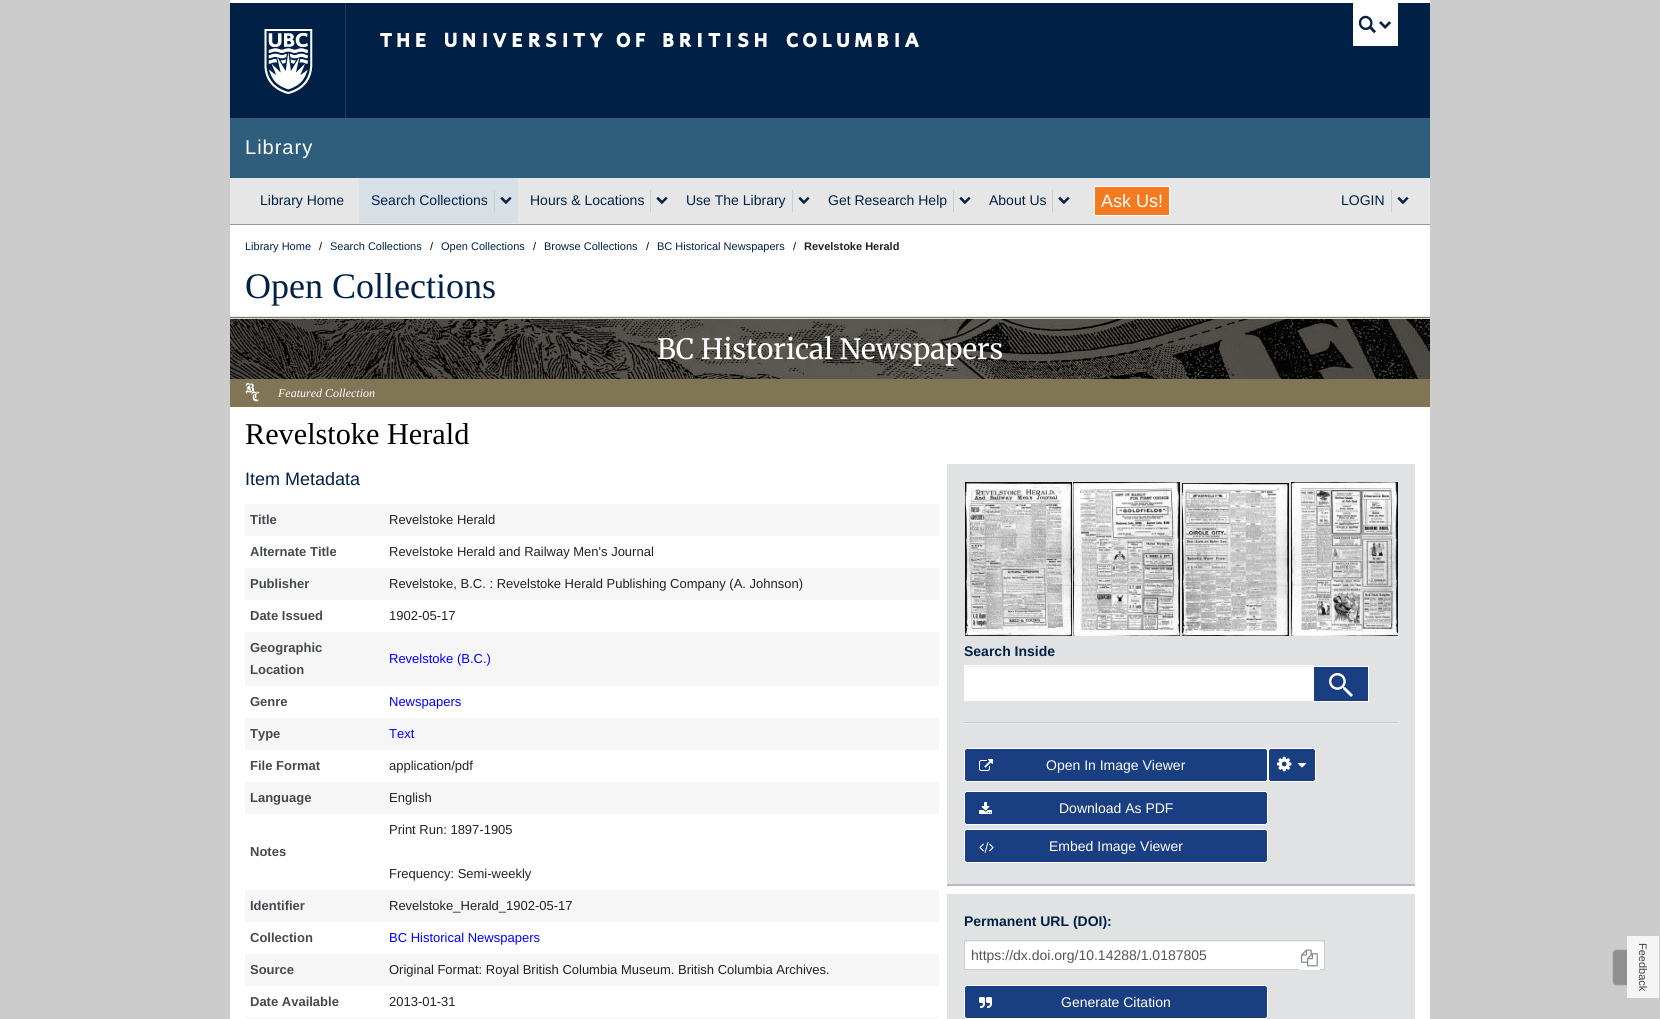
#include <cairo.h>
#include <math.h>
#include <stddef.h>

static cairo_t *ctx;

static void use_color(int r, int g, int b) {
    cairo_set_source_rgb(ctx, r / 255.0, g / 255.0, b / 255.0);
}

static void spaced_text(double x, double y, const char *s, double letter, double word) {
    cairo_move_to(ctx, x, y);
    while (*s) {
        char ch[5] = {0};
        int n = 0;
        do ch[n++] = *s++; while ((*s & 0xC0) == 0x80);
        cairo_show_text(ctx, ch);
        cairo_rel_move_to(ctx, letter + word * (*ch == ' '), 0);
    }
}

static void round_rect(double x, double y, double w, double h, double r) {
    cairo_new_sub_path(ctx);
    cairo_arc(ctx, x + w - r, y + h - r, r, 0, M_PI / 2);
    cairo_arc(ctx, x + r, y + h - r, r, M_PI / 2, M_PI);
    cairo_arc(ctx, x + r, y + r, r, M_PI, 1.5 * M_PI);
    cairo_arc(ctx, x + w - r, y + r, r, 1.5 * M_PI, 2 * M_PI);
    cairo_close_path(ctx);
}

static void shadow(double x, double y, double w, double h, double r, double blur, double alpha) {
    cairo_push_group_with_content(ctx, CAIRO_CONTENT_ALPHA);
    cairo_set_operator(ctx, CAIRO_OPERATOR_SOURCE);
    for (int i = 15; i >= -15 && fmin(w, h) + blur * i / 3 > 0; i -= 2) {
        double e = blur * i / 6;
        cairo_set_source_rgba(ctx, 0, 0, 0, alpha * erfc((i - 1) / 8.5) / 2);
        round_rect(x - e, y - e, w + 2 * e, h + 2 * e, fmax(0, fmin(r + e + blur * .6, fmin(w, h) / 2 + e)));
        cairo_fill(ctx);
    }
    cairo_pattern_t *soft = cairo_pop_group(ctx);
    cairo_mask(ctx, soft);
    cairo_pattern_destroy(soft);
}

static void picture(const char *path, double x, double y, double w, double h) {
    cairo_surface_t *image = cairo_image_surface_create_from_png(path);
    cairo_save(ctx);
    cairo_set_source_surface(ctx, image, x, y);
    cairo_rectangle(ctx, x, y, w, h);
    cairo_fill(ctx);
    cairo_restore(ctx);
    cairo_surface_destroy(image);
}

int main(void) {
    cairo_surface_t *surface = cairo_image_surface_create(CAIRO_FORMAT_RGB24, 1660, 1019);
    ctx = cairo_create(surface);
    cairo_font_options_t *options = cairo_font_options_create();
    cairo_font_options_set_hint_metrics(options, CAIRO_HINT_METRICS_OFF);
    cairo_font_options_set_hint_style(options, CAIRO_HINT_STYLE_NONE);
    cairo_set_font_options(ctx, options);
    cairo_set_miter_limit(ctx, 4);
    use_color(204, 204, 204);
    cairo_paint(ctx);
    use_color(0, 33, 69);
    cairo_rectangle(ctx, 230, 3, 1200, 115);
    cairo_fill(ctx);
    use_color(255, 255, 255);
    cairo_rectangle(ctx, 230, 0, 1200, 3);
    cairo_fill(ctx);
    picture("img1.png", 264, 29, 49, 65);
    picture("img2.png", 380, 32, 539, 16);
    use_color(31, 56, 95);
    cairo_rectangle(ctx, 345, 3, 1, 115);
    cairo_fill(ctx);
    use_color(255, 255, 255);
    cairo_rectangle(ctx, 1353, 3, 45, 43);
    cairo_fill(ctx);
    picture("img3.png", 1359, 15, 32, 19);
    use_color(47, 93, 124);
    cairo_rectangle(ctx, 230, 118, 1200, 60);
    cairo_fill(ctx);
    cairo_select_font_face(ctx, "Liberation Sans", CAIRO_FONT_SLANT_NORMAL, CAIRO_FONT_WEIGHT_NORMAL);
    cairo_set_font_size(ctx, 20);
    use_color(255, 255, 255);
    spaced_text(245, 154, "Library", 1, 0);
    use_color(230, 230, 230);
    cairo_rectangle(ctx, 230, 178, 1200, 46);
    cairo_fill(ctx);
    use_color(153, 153, 153);
    cairo_rectangle(ctx, 230, 224, 1200, 1);
    cairo_fill(ctx);
    cairo_set_font_size(ctx, 14);
    use_color(0, 33, 69);
    cairo_move_to(ctx, 260, 205);
    cairo_show_text(ctx, "Library Home");
    use_color(215, 224, 231);
    cairo_rectangle(ctx, 359, 178, 159, 45);
    cairo_fill(ctx);
    use_color(0, 33, 69);
    cairo_move_to(ctx, 371, 205);
    cairo_show_text(ctx, "Search Collections");
    use_color(195, 208, 219);
    cairo_rectangle(ctx, 494, 190, 1, 22);
    cairo_fill(ctx);
    picture("img4.png", 500, 197, 12, 7);
    use_color(0, 33, 69);
    cairo_move_to(ctx, 530, 205);
    cairo_show_text(ctx, "Hours & Locations");
    use_color(195, 208, 219);
    cairo_rectangle(ctx, 650, 190, 1, 22);
    cairo_fill(ctx);
    picture("img5.png", 656, 197, 12, 7);
    use_color(0, 33, 69);
    cairo_move_to(ctx, 686, 205);
    cairo_show_text(ctx, "Use The Library");
    use_color(195, 208, 219);
    cairo_rectangle(ctx, 792, 190, 1, 22);
    cairo_fill(ctx);
    picture("img5.png", 798, 197, 12, 7);
    use_color(0, 33, 69);
    cairo_move_to(ctx, 828, 205);
    cairo_show_text(ctx, "Get Research Help");
    use_color(195, 208, 219);
    cairo_rectangle(ctx, 953, 190, 1, 22);
    cairo_fill(ctx);
    picture("img5.png", 959, 197, 12, 7);
    use_color(0, 33, 69);
    cairo_move_to(ctx, 989, 205);
    cairo_show_text(ctx, "About Us");
    use_color(195, 208, 219);
    cairo_rectangle(ctx, 1052, 190, 1, 22);
    cairo_fill(ctx);
    picture("img5.png", 1058, 197, 12, 7);
    use_color(244, 122, 32);
    cairo_rectangle(ctx, 1094.5, 186.5, 75, 29);
    cairo_fill_preserve(ctx);
    use_color(255, 255, 255);
    cairo_set_line_width(ctx, 1);
    cairo_stroke(ctx);
    cairo_set_font_size(ctx, 18);
    cairo_move_to(ctx, 1101, 207);
    cairo_show_text(ctx, "Ask Us!");
    cairo_set_font_size(ctx, 14);
    use_color(0, 33, 69);
    cairo_move_to(ctx, 1341, 205);
    cairo_show_text(ctx, "LOGIN");
    use_color(195, 208, 219);
    cairo_rectangle(ctx, 1391, 190, 1, 22);
    cairo_fill(ctx);
    picture("img5.png", 1397, 197, 12, 7);
    use_color(255, 255, 255);
    cairo_rectangle(ctx, 230, 225, 1200, 91);
    cairo_fill(ctx);
    cairo_set_font_size(ctx, 11);
    use_color(0, 33, 69);
    cairo_move_to(ctx, 245, 250);
    cairo_show_text(ctx, "Library Home");
    use_color(0, 0, 0);
    cairo_move_to(ctx, 319, 250);
    cairo_show_text(ctx, "/");
    use_color(0, 33, 69);
    cairo_move_to(ctx, 330, 250);
    cairo_show_text(ctx, "Search Collections");
    use_color(0, 0, 0);
    cairo_move_to(ctx, 430, 250);
    cairo_show_text(ctx, "/");
    use_color(0, 33, 69);
    cairo_move_to(ctx, 441, 250);
    cairo_show_text(ctx, "Open Collections");
    use_color(0, 0, 0);
    cairo_move_to(ctx, 533, 250);
    cairo_show_text(ctx, "/");
    use_color(0, 33, 69);
    cairo_move_to(ctx, 544, 250);
    cairo_show_text(ctx, "Browse Collections");
    use_color(0, 0, 0);
    cairo_move_to(ctx, 646, 250);
    cairo_show_text(ctx, "/");
    use_color(0, 33, 69);
    cairo_move_to(ctx, 657, 250);
    cairo_show_text(ctx, "BC Historical Newspapers");
    use_color(0, 0, 0);
    cairo_move_to(ctx, 793, 250);
    cairo_show_text(ctx, "/");
    cairo_select_font_face(ctx, "Liberation Sans", CAIRO_FONT_SLANT_NORMAL, CAIRO_FONT_WEIGHT_BOLD);
    use_color(34, 34, 34);
    cairo_move_to(ctx, 804, 250);
    cairo_show_text(ctx, "Revelstoke Herald");
    cairo_select_font_face(ctx, "Liberation Serif", CAIRO_FONT_SLANT_NORMAL, CAIRO_FONT_WEIGHT_NORMAL);
    cairo_set_font_size(ctx, 36);
    use_color(0, 33, 69);
    cairo_move_to(ctx, 245, 298);
    cairo_show_text(ctx, "Open Collections");
    use_color(128, 117, 85);
    cairo_rectangle(ctx, 230, 317, 1200, 1);
    cairo_fill(ctx);
    use_color(233, 233, 235);
    cairo_rectangle(ctx, 230, 316, 1200, 1);
    cairo_fill(ctx);
    use_color(211, 213, 216);
    cairo_rectangle(ctx, 230, 318, 1200, 1);
    cairo_fill(ctx);
    picture("img6.png", 230, 319, 1200, 60);
    cairo_set_source_rgba(ctx, 0, 0, 0, 0.4);
    cairo_rectangle(ctx, 230, 319, 1200, 60);
    cairo_fill(ctx);
    cairo_select_font_face(ctx, "Merriweather", CAIRO_FONT_SLANT_NORMAL, CAIRO_FONT_WEIGHT_NORMAL);
    cairo_set_font_size(ctx, 28);
    use_color(255, 255, 255);
    cairo_move_to(ctx, 657, 359);
    cairo_show_text(ctx, "BC Historical Newspapers");
    use_color(128, 117, 85);
    cairo_rectangle(ctx, 230, 379, 1200, 28);
    cairo_fill(ctx);
    picture("img7.png", 245, 382, 15, 20);
    cairo_select_font_face(ctx, "Liberation Serif", CAIRO_FONT_SLANT_ITALIC, CAIRO_FONT_WEIGHT_NORMAL);
    cairo_set_font_size(ctx, 12);
    use_color(255, 255, 255);
    cairo_move_to(ctx, 278, 397);
    cairo_show_text(ctx, "Featured Collection");
    cairo_rectangle(ctx, 230, 407, 1200, 612);
    cairo_fill(ctx);
    cairo_select_font_face(ctx, "Liberation Serif", CAIRO_FONT_SLANT_NORMAL, CAIRO_FONT_WEIGHT_NORMAL);
    cairo_set_font_size(ctx, 30.25);
    use_color(0, 0, 0);
    cairo_move_to(ctx, 245, 444);
    cairo_show_text(ctx, "Revelstoke Herald");
    cairo_select_font_face(ctx, "Liberation Sans", CAIRO_FONT_SLANT_NORMAL, CAIRO_FONT_WEIGHT_NORMAL);
    cairo_set_font_size(ctx, 18);
    use_color(0, 33, 69);
    cairo_move_to(ctx, 245, 485);
    cairo_show_text(ctx, "Item Metadata");
    use_color(246, 246, 247);
    cairo_rectangle(ctx, 245, 504, 694, 32);
    cairo_fill(ctx);
    cairo_select_font_face(ctx, "Liberation Sans", CAIRO_FONT_SLANT_NORMAL, CAIRO_FONT_WEIGHT_BOLD);
    cairo_set_font_size(ctx, 13);
    use_color(69, 72, 78);
    cairo_move_to(ctx, 250, 524);
    cairo_show_text(ctx, "Title");
    cairo_select_font_face(ctx, "Liberation Sans", CAIRO_FONT_SLANT_NORMAL, CAIRO_FONT_WEIGHT_NORMAL);
    use_color(34, 34, 34);
    cairo_move_to(ctx, 389, 524);
    cairo_show_text(ctx, "Revelstoke Herald");
    cairo_select_font_face(ctx, "Liberation Sans", CAIRO_FONT_SLANT_NORMAL, CAIRO_FONT_WEIGHT_BOLD);
    use_color(69, 72, 78);
    cairo_move_to(ctx, 250, 556);
    cairo_show_text(ctx, "Alternate Title");
    cairo_select_font_face(ctx, "Liberation Sans", CAIRO_FONT_SLANT_NORMAL, CAIRO_FONT_WEIGHT_NORMAL);
    use_color(34, 34, 34);
    cairo_move_to(ctx, 389, 556);
    cairo_show_text(ctx, "Revelstoke Herald and Railway Men's Journal");
    use_color(246, 246, 247);
    cairo_rectangle(ctx, 245, 568, 694, 32);
    cairo_fill(ctx);
    cairo_select_font_face(ctx, "Liberation Sans", CAIRO_FONT_SLANT_NORMAL, CAIRO_FONT_WEIGHT_BOLD);
    use_color(69, 72, 78);
    cairo_move_to(ctx, 250, 588);
    cairo_show_text(ctx, "Publisher");
    cairo_select_font_face(ctx, "Liberation Sans", CAIRO_FONT_SLANT_NORMAL, CAIRO_FONT_WEIGHT_NORMAL);
    use_color(34, 34, 34);
    cairo_move_to(ctx, 389, 588);
    cairo_show_text(ctx, "Revelstoke, B.C. : Revelstoke Herald Publishing Company (A. Johnson)");
    cairo_select_font_face(ctx, "Liberation Sans", CAIRO_FONT_SLANT_NORMAL, CAIRO_FONT_WEIGHT_BOLD);
    use_color(69, 72, 78);
    cairo_move_to(ctx, 250, 620);
    cairo_show_text(ctx, "Date Issued");
    cairo_select_font_face(ctx, "Liberation Sans", CAIRO_FONT_SLANT_NORMAL, CAIRO_FONT_WEIGHT_NORMAL);
    use_color(34, 34, 34);
    cairo_move_to(ctx, 389, 620);
    cairo_show_text(ctx, "1902-05-17");
    use_color(246, 246, 247);
    cairo_rectangle(ctx, 245, 632, 694, 54);
    cairo_fill(ctx);
    cairo_select_font_face(ctx, "Liberation Sans", CAIRO_FONT_SLANT_NORMAL, CAIRO_FONT_WEIGHT_BOLD);
    use_color(69, 72, 78);
    cairo_move_to(ctx, 250, 652);
    cairo_show_text(ctx, "Geographic");
    cairo_move_to(ctx, 250, 674);
    cairo_show_text(ctx, "Location");
    cairo_select_font_face(ctx, "Liberation Sans", CAIRO_FONT_SLANT_NORMAL, CAIRO_FONT_WEIGHT_NORMAL);
    use_color(0, 0, 255);
    cairo_move_to(ctx, 389, 663);
    cairo_show_text(ctx, "Revelstoke (B.C.)");
    cairo_select_font_face(ctx, "Liberation Sans", CAIRO_FONT_SLANT_NORMAL, CAIRO_FONT_WEIGHT_BOLD);
    use_color(69, 72, 78);
    cairo_move_to(ctx, 250, 706);
    cairo_show_text(ctx, "Genre");
    cairo_select_font_face(ctx, "Liberation Sans", CAIRO_FONT_SLANT_NORMAL, CAIRO_FONT_WEIGHT_NORMAL);
    use_color(0, 0, 255);
    cairo_move_to(ctx, 389, 706);
    cairo_show_text(ctx, "Newspapers");
    use_color(246, 246, 247);
    cairo_rectangle(ctx, 245, 718, 694, 32);
    cairo_fill(ctx);
    cairo_select_font_face(ctx, "Liberation Sans", CAIRO_FONT_SLANT_NORMAL, CAIRO_FONT_WEIGHT_BOLD);
    use_color(69, 72, 78);
    cairo_move_to(ctx, 250, 738);
    cairo_show_text(ctx, "Type");
    cairo_select_font_face(ctx, "Liberation Sans", CAIRO_FONT_SLANT_NORMAL, CAIRO_FONT_WEIGHT_NORMAL);
    use_color(0, 0, 255);
    cairo_move_to(ctx, 389, 738);
    cairo_show_text(ctx, "Text");
    cairo_select_font_face(ctx, "Liberation Sans", CAIRO_FONT_SLANT_NORMAL, CAIRO_FONT_WEIGHT_BOLD);
    use_color(69, 72, 78);
    cairo_move_to(ctx, 250, 770);
    cairo_show_text(ctx, "File Format");
    cairo_select_font_face(ctx, "Liberation Sans", CAIRO_FONT_SLANT_NORMAL, CAIRO_FONT_WEIGHT_NORMAL);
    use_color(34, 34, 34);
    cairo_move_to(ctx, 389, 770);
    cairo_show_text(ctx, "application/pdf");
    use_color(246, 246, 247);
    cairo_rectangle(ctx, 245, 782, 694, 32);
    cairo_fill(ctx);
    cairo_select_font_face(ctx, "Liberation Sans", CAIRO_FONT_SLANT_NORMAL, CAIRO_FONT_WEIGHT_BOLD);
    use_color(69, 72, 78);
    cairo_move_to(ctx, 250, 802);
    cairo_show_text(ctx, "Language");
    cairo_select_font_face(ctx, "Liberation Sans", CAIRO_FONT_SLANT_NORMAL, CAIRO_FONT_WEIGHT_NORMAL);
    use_color(34, 34, 34);
    cairo_move_to(ctx, 389, 802);
    cairo_show_text(ctx, "English");
    cairo_select_font_face(ctx, "Liberation Sans", CAIRO_FONT_SLANT_NORMAL, CAIRO_FONT_WEIGHT_BOLD);
    use_color(69, 72, 78);
    cairo_move_to(ctx, 250, 856);
    cairo_show_text(ctx, "Notes");
    cairo_select_font_face(ctx, "Liberation Sans", CAIRO_FONT_SLANT_NORMAL, CAIRO_FONT_WEIGHT_NORMAL);
    use_color(34, 34, 34);
    cairo_move_to(ctx, 389, 834);
    cairo_show_text(ctx, "Print Run: 1897-1905");
    cairo_move_to(ctx, 389, 878);
    cairo_show_text(ctx, "Frequency: Semi-weekly");
    use_color(246, 246, 247);
    cairo_rectangle(ctx, 245, 890, 694, 32);
    cairo_fill(ctx);
    cairo_select_font_face(ctx, "Liberation Sans", CAIRO_FONT_SLANT_NORMAL, CAIRO_FONT_WEIGHT_BOLD);
    use_color(69, 72, 78);
    cairo_move_to(ctx, 250, 910);
    cairo_show_text(ctx, "Identifier");
    cairo_select_font_face(ctx, "Liberation Sans", CAIRO_FONT_SLANT_NORMAL, CAIRO_FONT_WEIGHT_NORMAL);
    use_color(34, 34, 34);
    cairo_move_to(ctx, 389, 910);
    cairo_show_text(ctx, "Revelstoke_Herald_1902-05-17");
    cairo_select_font_face(ctx, "Liberation Sans", CAIRO_FONT_SLANT_NORMAL, CAIRO_FONT_WEIGHT_BOLD);
    use_color(69, 72, 78);
    cairo_move_to(ctx, 250, 942);
    cairo_show_text(ctx, "Collection");
    cairo_select_font_face(ctx, "Liberation Sans", CAIRO_FONT_SLANT_NORMAL, CAIRO_FONT_WEIGHT_NORMAL);
    use_color(0, 0, 255);
    cairo_move_to(ctx, 389, 942);
    cairo_show_text(ctx, "BC Historical Newspapers");
    use_color(246, 246, 247);
    cairo_rectangle(ctx, 245, 954, 694, 32);
    cairo_fill(ctx);
    cairo_select_font_face(ctx, "Liberation Sans", CAIRO_FONT_SLANT_NORMAL, CAIRO_FONT_WEIGHT_BOLD);
    use_color(69, 72, 78);
    cairo_move_to(ctx, 250, 974);
    cairo_show_text(ctx, "Source");
    cairo_select_font_face(ctx, "Liberation Sans", CAIRO_FONT_SLANT_NORMAL, CAIRO_FONT_WEIGHT_NORMAL);
    use_color(34, 34, 34);
    cairo_move_to(ctx, 389, 974);
    cairo_show_text(ctx, "Original Format: Royal British Columbia Museum. British Columbia Archives.");
    cairo_select_font_face(ctx, "Liberation Sans", CAIRO_FONT_SLANT_NORMAL, CAIRO_FONT_WEIGHT_BOLD);
    use_color(69, 72, 78);
    cairo_move_to(ctx, 250, 1006);
    cairo_show_text(ctx, "Date Available");
    cairo_select_font_face(ctx, "Liberation Sans", CAIRO_FONT_SLANT_NORMAL, CAIRO_FONT_WEIGHT_NORMAL);
    use_color(34, 34, 34);
    cairo_move_to(ctx, 389, 1006);
    cairo_show_text(ctx, "2013-01-31");
    use_color(246, 246, 247);
    cairo_rectangle(ctx, 245, 1018, 694, 1);
    cairo_fill(ctx);
    use_color(225, 226, 228);
    cairo_rectangle(ctx, 947, 464, 468, 420);
    cairo_fill(ctx);
    use_color(184, 186, 192);
    cairo_rectangle(ctx, 947, 884, 468, 2);
    cairo_fill(ctx);
    picture("img8.png", 965, 482, 107, 154);
    picture("img9.png", 1073, 482, 107, 154);
    picture("img10.png", 1182, 483, 107, 153);
    picture("img11.png", 1291, 482, 107, 154);
    cairo_select_font_face(ctx, "Liberation Sans", CAIRO_FONT_SLANT_NORMAL, CAIRO_FONT_WEIGHT_BOLD);
    cairo_set_font_size(ctx, 14);
    use_color(0, 33, 69);
    cairo_move_to(ctx, 964, 656);
    cairo_show_text(ctx, "Search Inside");
    use_color(255, 255, 255);
    cairo_rectangle(ctx, 964, 665, 349, 36);
    cairo_fill(ctx);
    use_color(236, 236, 236);
    cairo_rectangle(ctx, 965, 666, 347, 1);
    cairo_fill(ctx);
    use_color(26, 62, 130);
    cairo_rectangle(ctx, 1313.5, 666.5, 55, 35);
    cairo_fill_preserve(ctx);
    use_color(255, 255, 255);
    cairo_stroke(ctx);
    picture("img12.png", 1329, 673, 24, 24);
    use_color(203, 203, 205);
    cairo_rectangle(ctx, 964, 722, 434, 1);
    cairo_fill(ctx);
    use_color(234, 235, 236);
    cairo_rectangle(ctx, 964, 723, 434, 1);
    cairo_fill(ctx);
    use_color(26, 62, 130);
    round_rect(964.5, 748.5, 303, 33, 2.5);
    cairo_fill_preserve(ctx);
    use_color(255, 255, 255);
    cairo_stroke(ctx);
    picture("img13.png", 979, 759, 14, 12);
    cairo_select_font_face(ctx, "Liberation Sans", CAIRO_FONT_SLANT_NORMAL, CAIRO_FONT_WEIGHT_NORMAL);
    cairo_move_to(ctx, 1046, 770);
    cairo_show_text(ctx, "Open In Image Viewer");
    use_color(26, 62, 130);
    round_rect(1268.5, 748.5, 47, 33, 2.5);
    cairo_fill_preserve(ctx);
    use_color(255, 255, 255);
    cairo_stroke(ctx);
    picture("img14.png", 1277, 756, 15, 16);
    picture("img15.png", 1298, 763, 8, 5);
    use_color(26, 62, 130);
    round_rect(964.5, 791.5, 303, 33, 2.5);
    cairo_fill_preserve(ctx);
    use_color(255, 255, 255);
    cairo_stroke(ctx);
    picture("img16.png", 979, 802, 13, 12);
    cairo_move_to(ctx, 1059, 813);
    cairo_show_text(ctx, "Download As PDF");
    use_color(26, 62, 130);
    round_rect(964.5, 829.5, 303, 33, 2.5);
    cairo_fill_preserve(ctx);
    use_color(255, 255, 255);
    cairo_stroke(ctx);
    picture("img17.png", 979, 842, 15, 11);
    cairo_move_to(ctx, 1049, 851);
    cairo_show_text(ctx, "Embed Image Viewer");
    use_color(225, 226, 228);
    cairo_rectangle(ctx, 947, 894, 468, 125);
    cairo_fill(ctx);
    cairo_select_font_face(ctx, "Liberation Sans", CAIRO_FONT_SLANT_NORMAL, CAIRO_FONT_WEIGHT_BOLD);
    use_color(0, 33, 69);
    cairo_move_to(ctx, 964, 926);
    cairo_show_text(ctx, "Permanent URL (DOI):");
    use_color(255, 255, 255);
    cairo_rectangle(ctx, 965, 942, 359, 27);
    cairo_fill(ctx);
    use_color(236, 236, 236);
    cairo_rectangle(ctx, 965, 941, 359, 1);
    cairo_fill(ctx);
    cairo_rectangle(ctx, 964.5, 940.5, 360, 29);
    use_color(204, 204, 204);
    cairo_stroke(ctx);
    cairo_select_font_face(ctx, "Liberation Sans", CAIRO_FONT_SLANT_NORMAL, CAIRO_FONT_WEIGHT_NORMAL);
    use_color(85, 85, 85);
    cairo_move_to(ctx, 971, 960);
    cairo_show_text(ctx, "https://dx.doi.org/10.14288/1.0187805");
    use_color(255, 255, 255);
    cairo_rectangle(ctx, 1299, 969, 21, 1);
    cairo_fill(ctx);
    picture("img18.png", 1301, 949, 17, 18);
    use_color(26, 62, 130);
    round_rect(964.5, 985.5, 303, 33, 2.5);
    cairo_fill_preserve(ctx);
    use_color(255, 255, 255);
    cairo_stroke(ctx);
    picture("img19.png", 979, 997, 13, 11);
    cairo_move_to(ctx, 1061, 1007);
    cairo_show_text(ctx, "Generate Citation");
    use_color(0, 0, 0);
    shadow(1613, 950, 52, 35, 3, 0.5, 0.3);
    use_color(245, 245, 245);
    cairo_new_path(ctx);
    cairo_move_to(ctx, 1660, 937);
    cairo_line_to(ctx, 1660, 998);
    cairo_line_to(ctx, 1627, 998);
    cairo_line_to(ctx, 1627, 935);
    cairo_line_to(ctx, 1658, 935);
    cairo_curve_to(ctx, 1659, 935, 1660, 936, 1660, 937);
    cairo_close_path(ctx);
    cairo_fill(ctx);
    use_color(204, 204, 204);
    cairo_rectangle(ctx, 1659, 936, 1, 62);
    cairo_fill(ctx);
    cairo_rectangle(ctx, 1627, 935, 32, 1);
    cairo_fill(ctx);
    cairo_set_font_size(ctx, 11);
    use_color(68, 68, 68);
    cairo_save(ctx);
    cairo_translate(ctx, 1639, 943);
    cairo_rotate(ctx, 90 * M_PI / 180);
    cairo_move_to(ctx, 0, 0);
    cairo_show_text(ctx, "Feedback");
    cairo_restore(ctx);
    cairo_surface_write_to_png(surface, "result.png");
    cairo_font_options_destroy(options);
    cairo_destroy(ctx);
    cairo_surface_destroy(surface);
    return 0;
}
